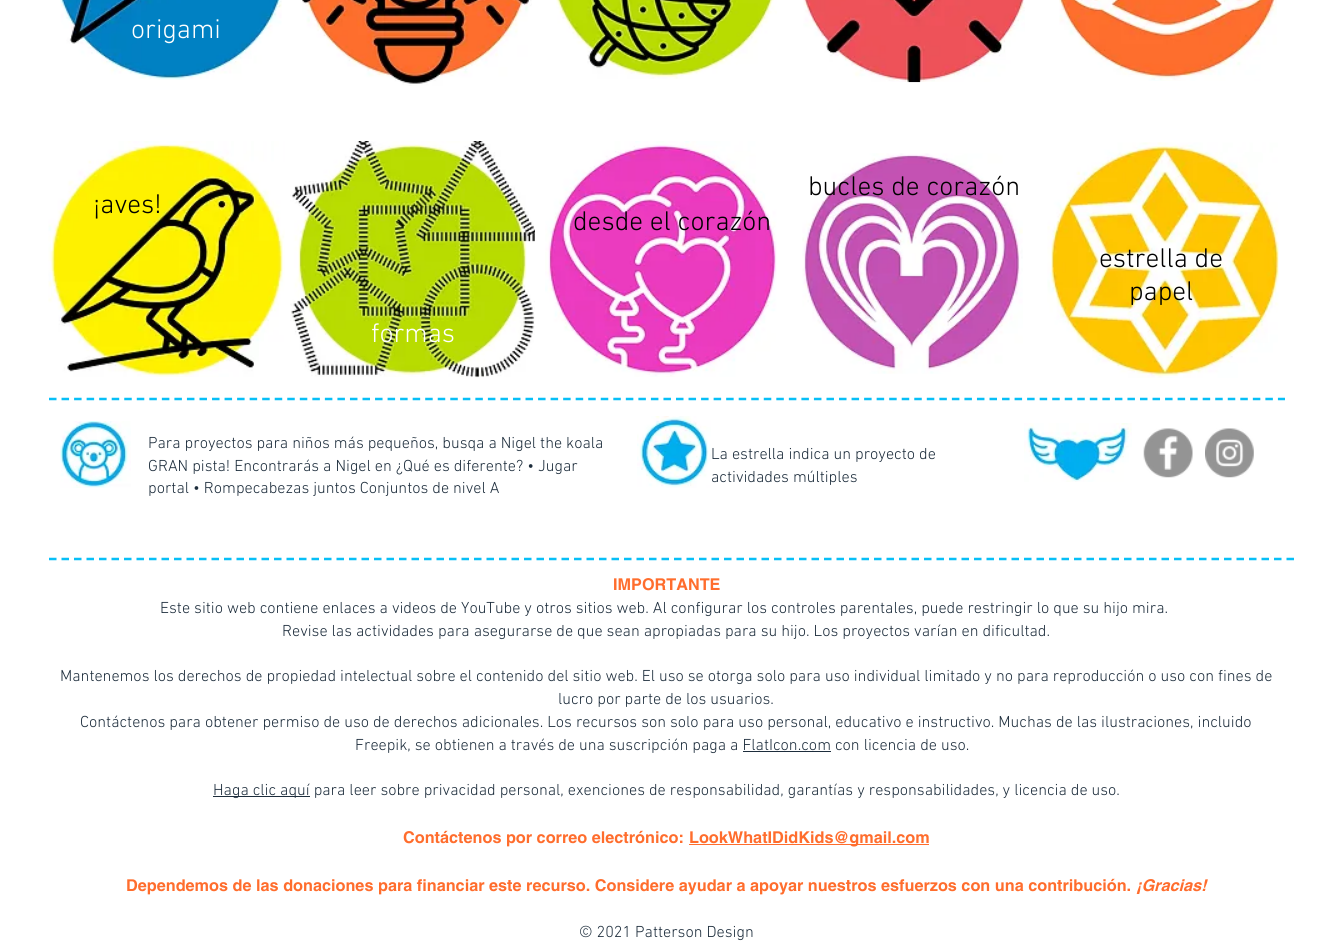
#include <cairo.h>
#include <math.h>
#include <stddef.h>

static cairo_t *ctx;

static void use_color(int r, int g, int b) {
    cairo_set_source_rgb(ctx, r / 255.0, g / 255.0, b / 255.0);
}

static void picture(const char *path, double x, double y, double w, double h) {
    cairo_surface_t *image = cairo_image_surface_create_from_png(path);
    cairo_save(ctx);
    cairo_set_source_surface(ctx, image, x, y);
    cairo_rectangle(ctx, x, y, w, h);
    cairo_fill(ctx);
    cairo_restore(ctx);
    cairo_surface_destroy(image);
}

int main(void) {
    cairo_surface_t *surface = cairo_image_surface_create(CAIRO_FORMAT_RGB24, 1342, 943);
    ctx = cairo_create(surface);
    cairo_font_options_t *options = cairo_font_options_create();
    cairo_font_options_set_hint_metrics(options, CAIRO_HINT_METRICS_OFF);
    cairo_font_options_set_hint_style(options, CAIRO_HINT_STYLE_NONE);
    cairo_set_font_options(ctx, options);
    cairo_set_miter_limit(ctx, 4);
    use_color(255, 255, 255);
    cairo_paint(ctx);
    picture("img1.png", 60, 0, 222, 80);
    cairo_select_font_face(ctx, "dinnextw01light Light", CAIRO_FONT_SLANT_NORMAL, CAIRO_FONT_WEIGHT_NORMAL);
    cairo_set_font_size(ctx, 27.5);
    use_color(255, 255, 255);
    cairo_move_to(ctx, 131, 38);
    cairo_show_text(ctx, "origami");
    picture("img2.png", 302, 0, 230, 86);
    picture("img3.png", 556, 0, 221, 79);
    picture("img4.png", 803, 0, 222, 83);
    picture("img5.png", 1059, 0, 218, 81);
    picture("img6.png", 802, 153, 221, 221);
    use_color(0, 0, 0);
    cairo_move_to(ctx, 808, 195);
    cairo_show_text(ctx, "bucles de corazón");
    picture("img7.png", 48, 141, 237, 236);
    cairo_move_to(ctx, 93, 213);
    cairo_show_text(ctx, "¡aves!");
    picture("img8.png", 545, 141, 232, 236);
    cairo_move_to(ctx, 573, 230);
    cairo_show_text(ctx, "desde el corazón");
    picture("img9.png", 1047, 142, 232, 236);
    cairo_move_to(ctx, 1099, 267);
    cairo_show_text(ctx, "estrella de");
    cairo_move_to(ctx, 1129, 300);
    cairo_show_text(ctx, "papel");
    picture("img10.png", 290, 141, 245, 237);
    use_color(255, 255, 255);
    cairo_move_to(ctx, 371, 342);
    cairo_show_text(ctx, "formas");
    cairo_new_path(ctx);
    cairo_move_to(ctx, 49, 399);
    cairo_line_to(ctx, 1285, 399);
    use_color(7, 191, 247);
    cairo_set_line_width(ctx, 2.5);
    cairo_set_dash(ctx, (double[]){7.5, 5.04}, 2, 0);
    cairo_stroke(ctx);
    picture("img11.png", 60, 421, 71, 67);
    cairo_set_font_size(ctx, 16.25);
    use_color(29, 45, 60);
    cairo_move_to(ctx, 148, 448);
    cairo_show_text(ctx, "Para proyectos para niños más pequeños, busqa a Nigel the koala");
    cairo_move_to(ctx, 148, 471);
    cairo_show_text(ctx, "GRAN pista! Encontrarás a Nigel en ¿Qué es diferente? • Jugar");
    cairo_move_to(ctx, 148, 493);
    cairo_show_text(ctx, "portal • Rompecabezas juntos Conjuntos de nivel A");
    picture("img12.png", 637, 416, 74, 72);
    cairo_move_to(ctx, 711, 459);
    cairo_show_text(ctx, "La estrella indica un proyecto de");
    cairo_move_to(ctx, 711, 482);
    cairo_show_text(ctx, "actividades múltiples");
    picture("img13.png", 1024, 423, 108, 59);
    picture("img14.png", 1143, 428, 50, 50);
    picture("img15.png", 1205, 428, 49, 50);
    cairo_new_path(ctx);
    cairo_move_to(ctx, 49, 559);
    cairo_line_to(ctx, 1294, 559);
    use_color(7, 191, 247);
    cairo_set_dash(ctx, (double[]){7.5, 5}, 2, 0);
    cairo_stroke(ctx);
    cairo_select_font_face(ctx, "helvetica", CAIRO_FONT_SLANT_NORMAL, CAIRO_FONT_WEIGHT_BOLD);
    use_color(255, 109, 45);
    cairo_move_to(ctx, 613, 590);
    cairo_show_text(ctx, "IMPORTANTE");
    cairo_select_font_face(ctx, "dinnextw01light Light", CAIRO_FONT_SLANT_NORMAL, CAIRO_FONT_WEIGHT_NORMAL);
    use_color(29, 45, 60);
    cairo_move_to(ctx, 160, 613);
    cairo_show_text(ctx, "Este sitio web contiene enlaces a videos de YouTube y otros sitios web. Al configurar los controles parentales, puede restringir lo que su hijo mira.");
    cairo_move_to(ctx, 282, 636);
    cairo_show_text(ctx, "Revise las actividades para asegurarse de que sean apropiadas para su hijo. Los proyectos varían en dificultad.");
    cairo_move_to(ctx, 60, 681);
    cairo_show_text(ctx, "Mantenemos los derechos de propiedad intelectual sobre el contenido del sitio web. El uso se otorga solo para uso individual limitado y no para reproducción o uso con fines de");
    cairo_move_to(ctx, 558, 704);
    cairo_show_text(ctx, "lucro por parte de los usuarios.");
    cairo_move_to(ctx, 80, 727);
    cairo_show_text(ctx, "Contáctenos para obtener permiso de uso de derechos adicionales. Los recursos son solo para uso personal, educativo e instructivo. Muchas de las ilustraciones, incluido");
    cairo_move_to(ctx, 355, 750);
    cairo_show_text(ctx, "Freepik, se obtienen a través de una suscripción paga a FlatIcon.com con licencia de uso.");
    cairo_rectangle(ctx, 743, 751, 88, 1);
    cairo_fill(ctx);
    cairo_rectangle(ctx, 213, 796, 97, 1);
    cairo_fill(ctx);
    cairo_move_to(ctx, 213, 795);
    cairo_show_text(ctx, "Haga clic aquí para leer sobre privacidad personal, exenciones de responsabilidad, garantías y responsabilidades, y licencia de uso.");
    cairo_select_font_face(ctx, "helvetica", CAIRO_FONT_SLANT_NORMAL, CAIRO_FONT_WEIGHT_BOLD);
    use_color(255, 109, 45);
    cairo_move_to(ctx, 403, 843);
    cairo_show_text(ctx, "Contáctenos por correo electrónico:");
    cairo_rectangle(ctx, 689, 844, 240, 1);
    cairo_fill(ctx);
    cairo_move_to(ctx, 689, 843);
    cairo_show_text(ctx, "LookWhatIDidKids@gmail.com");
    cairo_move_to(ctx, 126, 891);
    cairo_show_text(ctx, "Dependemos de las donaciones para financiar este recurso. Considere ayudar a apoyar nuestros esfuerzos con una contribución.");
    cairo_select_font_face(ctx, "helvetica", CAIRO_FONT_SLANT_ITALIC, CAIRO_FONT_WEIGHT_BOLD);
    cairo_move_to(ctx, 1136, 891);
    cairo_show_text(ctx, "¡Gracias!");
    cairo_select_font_face(ctx, "dinnextw01light Light", CAIRO_FONT_SLANT_NORMAL, CAIRO_FONT_WEIGHT_NORMAL);
    use_color(29, 45, 60);
    cairo_move_to(ctx, 579, 937);
    cairo_show_text(ctx, "© 2021 Patterson Design");
    cairo_surface_write_to_png(surface, "result.png");
    cairo_font_options_destroy(options);
    cairo_destroy(ctx);
    cairo_surface_destroy(surface);
    return 0;
}
